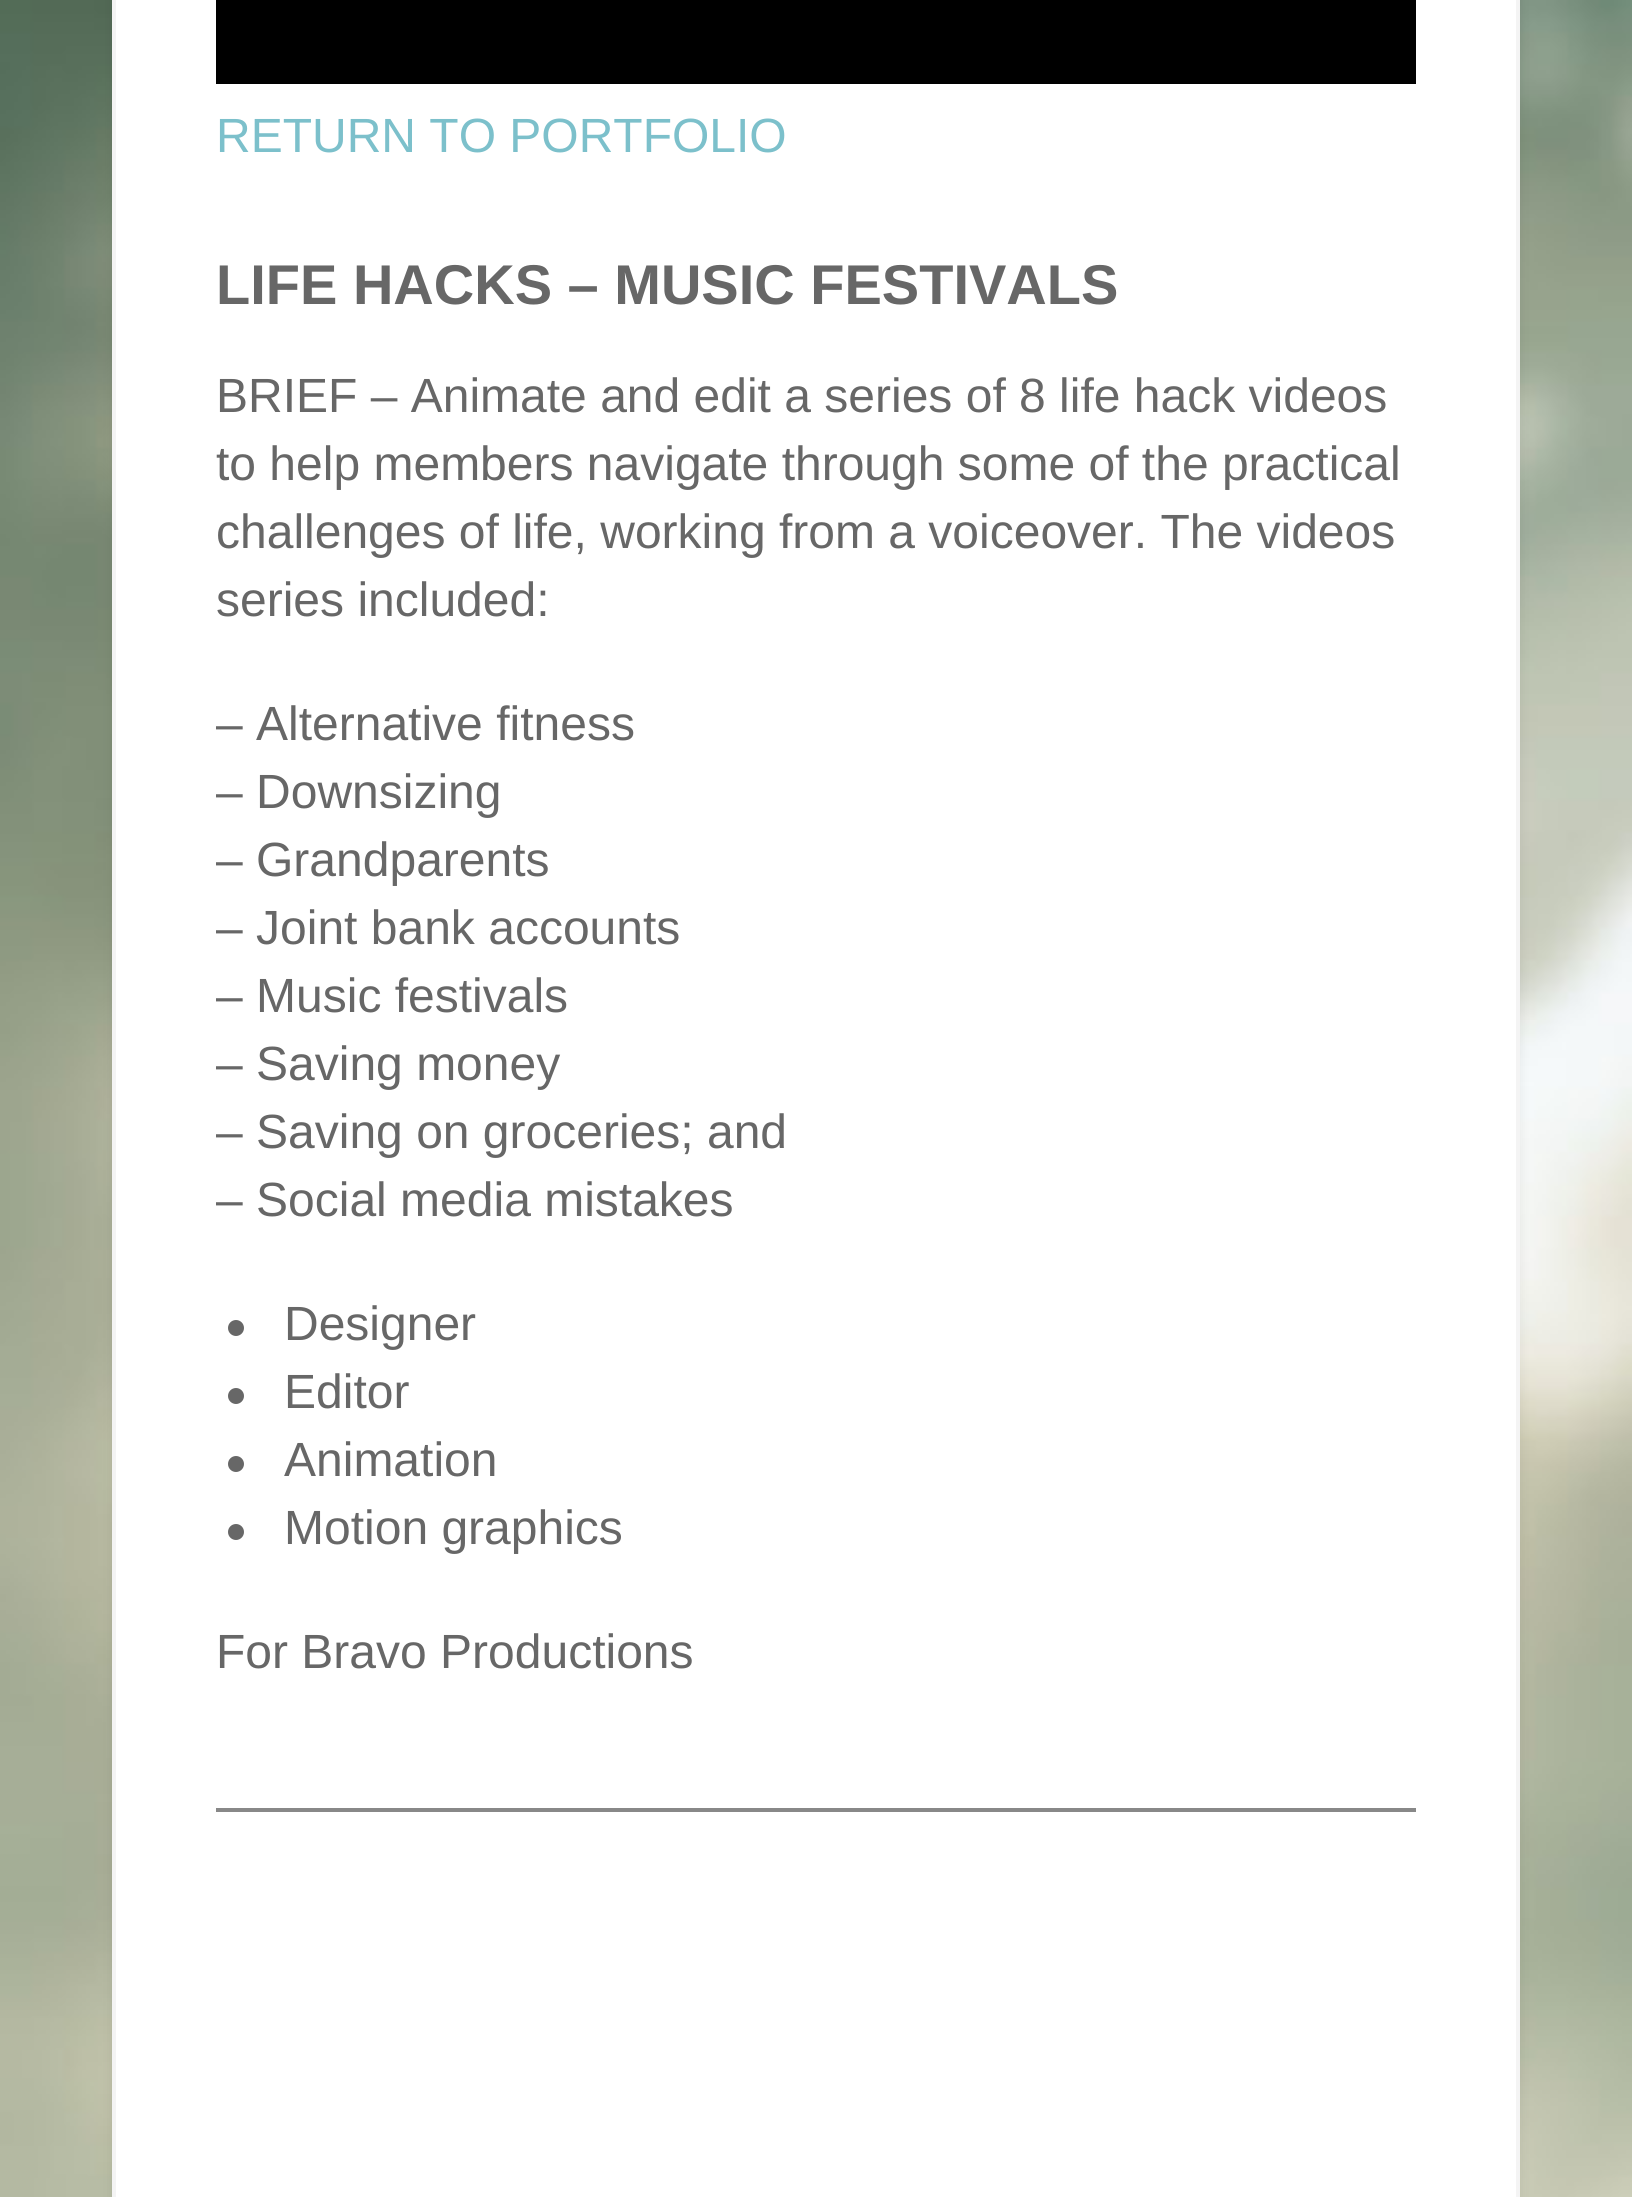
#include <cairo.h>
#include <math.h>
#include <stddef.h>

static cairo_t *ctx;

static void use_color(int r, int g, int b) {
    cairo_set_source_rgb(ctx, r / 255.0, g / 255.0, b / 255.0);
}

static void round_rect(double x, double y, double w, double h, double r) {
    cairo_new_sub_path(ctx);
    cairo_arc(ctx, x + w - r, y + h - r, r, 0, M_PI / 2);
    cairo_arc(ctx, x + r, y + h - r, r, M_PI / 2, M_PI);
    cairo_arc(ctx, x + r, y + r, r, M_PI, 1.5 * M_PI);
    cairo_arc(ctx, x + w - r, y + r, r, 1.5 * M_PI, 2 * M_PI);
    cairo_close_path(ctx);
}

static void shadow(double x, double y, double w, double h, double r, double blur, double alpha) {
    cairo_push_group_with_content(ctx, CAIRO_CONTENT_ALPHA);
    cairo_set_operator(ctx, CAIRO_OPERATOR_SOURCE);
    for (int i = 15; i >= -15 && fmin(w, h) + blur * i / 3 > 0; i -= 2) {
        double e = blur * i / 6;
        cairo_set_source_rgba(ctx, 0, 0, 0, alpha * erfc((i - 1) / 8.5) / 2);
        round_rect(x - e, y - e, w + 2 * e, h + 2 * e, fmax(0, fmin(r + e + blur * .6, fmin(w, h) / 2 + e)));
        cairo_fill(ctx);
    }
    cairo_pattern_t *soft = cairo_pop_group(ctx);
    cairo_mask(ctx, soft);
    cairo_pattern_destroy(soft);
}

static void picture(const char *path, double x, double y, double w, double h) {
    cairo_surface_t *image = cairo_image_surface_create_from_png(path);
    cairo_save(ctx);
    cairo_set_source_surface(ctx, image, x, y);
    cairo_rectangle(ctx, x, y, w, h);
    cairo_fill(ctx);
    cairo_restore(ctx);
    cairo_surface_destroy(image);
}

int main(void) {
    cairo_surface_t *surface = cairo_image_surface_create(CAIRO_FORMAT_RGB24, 1632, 2197);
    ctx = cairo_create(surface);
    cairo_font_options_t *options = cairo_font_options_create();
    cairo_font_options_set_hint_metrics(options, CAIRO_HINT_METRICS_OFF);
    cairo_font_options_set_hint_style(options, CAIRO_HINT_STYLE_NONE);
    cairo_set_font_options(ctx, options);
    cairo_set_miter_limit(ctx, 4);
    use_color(255, 255, 255);
    cairo_paint(ctx);
    picture("img1.png", 0, 0, 1632, 2197);
    use_color(0, 0, 0);
    shadow(112, -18, 1408, 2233, 0, 6, 0.07);
    use_color(255, 255, 255);
    cairo_rectangle(ctx, 116, 0, 1400, 2197);
    cairo_fill(ctx);
    use_color(244, 244, 244);
    cairo_rectangle(ctx, 1516, 0, 4, 2197);
    cairo_fill(ctx);
    cairo_rectangle(ctx, 112, 0, 4, 2197);
    cairo_fill(ctx);
    use_color(136, 136, 136);
    cairo_rectangle(ctx, 216, 1808, 1200, 4);
    cairo_fill(ctx);
    use_color(0, 0, 0);
    cairo_rectangle(ctx, 216, 0, 1200, 84);
    cairo_fill(ctx);
    cairo_select_font_face(ctx, "Liberation Sans", CAIRO_FONT_SLANT_NORMAL, CAIRO_FONT_WEIGHT_NORMAL);
    cairo_set_font_size(ctx, 48);
    use_color(124, 192, 203);
    cairo_move_to(ctx, 216, 152);
    cairo_show_text(ctx, "RETURN TO PORTFOLIO");
    cairo_select_font_face(ctx, "Liberation Sans", CAIRO_FONT_SLANT_NORMAL, CAIRO_FONT_WEIGHT_BOLD);
    cairo_set_font_size(ctx, 56);
    use_color(103, 103, 103);
    cairo_move_to(ctx, 216, 304);
    cairo_show_text(ctx, "LIFE HACKS – MUSIC FESTIVALS");
    cairo_select_font_face(ctx, "Liberation Sans", CAIRO_FONT_SLANT_NORMAL, CAIRO_FONT_WEIGHT_NORMAL);
    cairo_set_font_size(ctx, 48);
    cairo_move_to(ctx, 216, 412);
    cairo_show_text(ctx, "BRIEF – Animate and edit a series of 8 life hack videos");
    cairo_move_to(ctx, 216, 480);
    cairo_show_text(ctx, "to help members navigate through some of the practical");
    cairo_move_to(ctx, 216, 548);
    cairo_show_text(ctx, "challenges of life, working from a voiceover. The videos");
    cairo_move_to(ctx, 216, 616);
    cairo_show_text(ctx, "series included:");
    cairo_move_to(ctx, 216, 740);
    cairo_show_text(ctx, "– Alternative fitness");
    cairo_move_to(ctx, 216, 808);
    cairo_show_text(ctx, "– Downsizing");
    cairo_move_to(ctx, 216, 876);
    cairo_show_text(ctx, "– Grandparents");
    cairo_move_to(ctx, 216, 944);
    cairo_show_text(ctx, "– Joint bank accounts");
    cairo_move_to(ctx, 216, 1012);
    cairo_show_text(ctx, "– Music festivals");
    cairo_move_to(ctx, 216, 1080);
    cairo_show_text(ctx, "– Saving money");
    cairo_move_to(ctx, 216, 1148);
    cairo_show_text(ctx, "– Saving on groceries; and");
    cairo_move_to(ctx, 216, 1216);
    cairo_show_text(ctx, "– Social media mistakes");
    cairo_new_path(ctx);
    cairo_arc(ctx, 236, 1328, 8, 0, 2 * M_PI);
    cairo_fill(ctx);
    cairo_move_to(ctx, 284, 1340);
    cairo_show_text(ctx, "Designer");
    cairo_new_path(ctx);
    cairo_arc(ctx, 236, 1396, 8, 0, 2 * M_PI);
    cairo_fill(ctx);
    cairo_move_to(ctx, 284, 1408);
    cairo_show_text(ctx, "Editor");
    cairo_new_path(ctx);
    cairo_arc(ctx, 236, 1464, 8, 0, 2 * M_PI);
    cairo_fill(ctx);
    cairo_move_to(ctx, 284, 1476);
    cairo_show_text(ctx, "Animation");
    cairo_new_path(ctx);
    cairo_arc(ctx, 236, 1532, 8, 0, 2 * M_PI);
    cairo_fill(ctx);
    cairo_move_to(ctx, 284, 1544);
    cairo_show_text(ctx, "Motion graphics");
    cairo_move_to(ctx, 216, 1668);
    cairo_show_text(ctx, "For Bravo Productions");
    cairo_surface_write_to_png(surface, "result.png");
    cairo_font_options_destroy(options);
    cairo_destroy(ctx);
    cairo_surface_destroy(surface);
    return 0;
}
